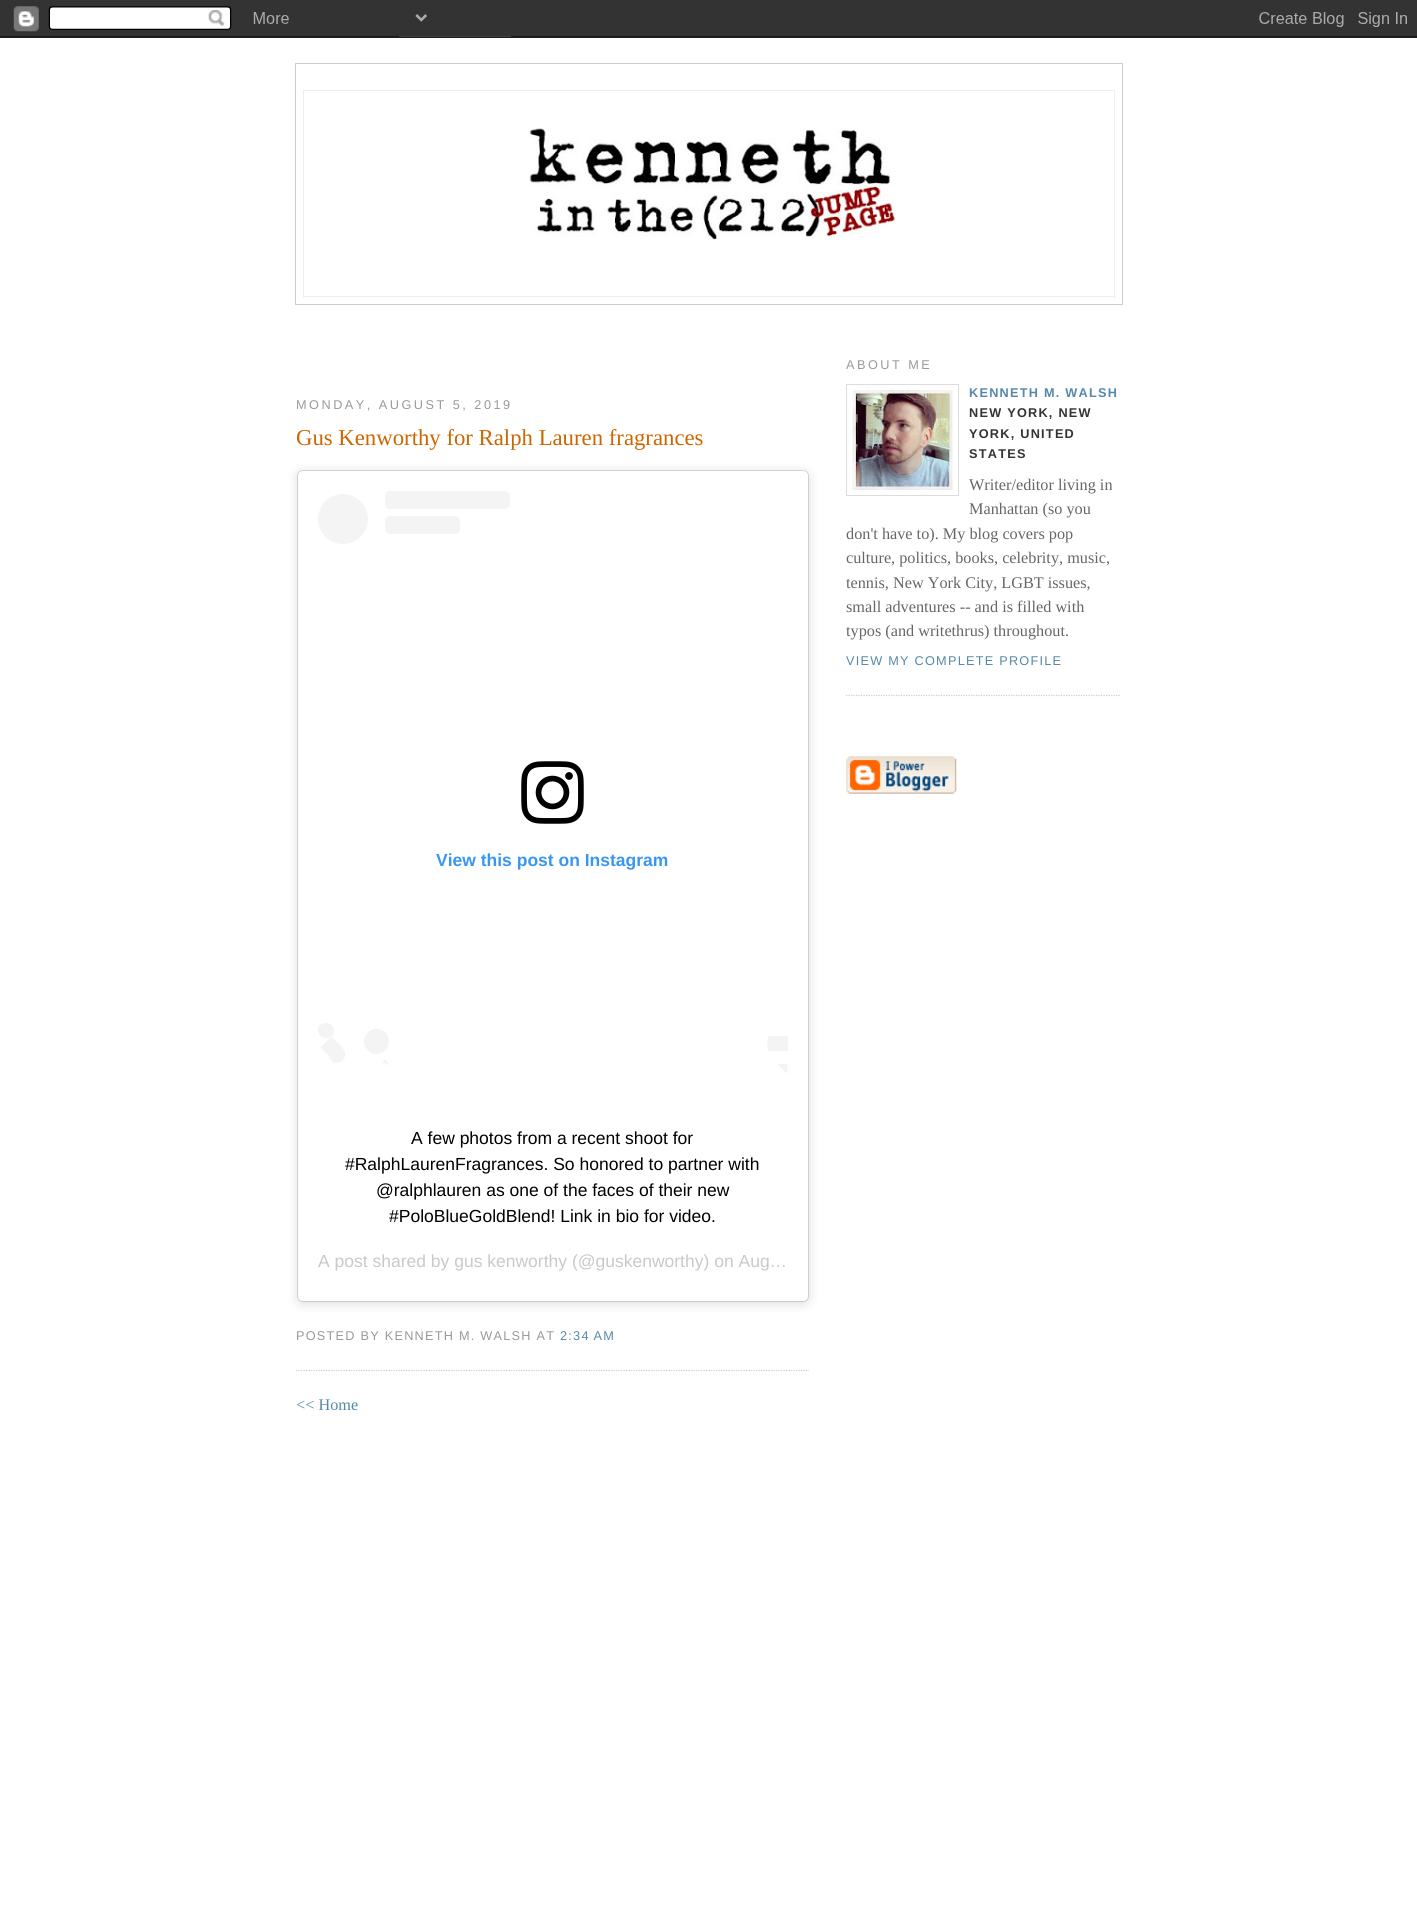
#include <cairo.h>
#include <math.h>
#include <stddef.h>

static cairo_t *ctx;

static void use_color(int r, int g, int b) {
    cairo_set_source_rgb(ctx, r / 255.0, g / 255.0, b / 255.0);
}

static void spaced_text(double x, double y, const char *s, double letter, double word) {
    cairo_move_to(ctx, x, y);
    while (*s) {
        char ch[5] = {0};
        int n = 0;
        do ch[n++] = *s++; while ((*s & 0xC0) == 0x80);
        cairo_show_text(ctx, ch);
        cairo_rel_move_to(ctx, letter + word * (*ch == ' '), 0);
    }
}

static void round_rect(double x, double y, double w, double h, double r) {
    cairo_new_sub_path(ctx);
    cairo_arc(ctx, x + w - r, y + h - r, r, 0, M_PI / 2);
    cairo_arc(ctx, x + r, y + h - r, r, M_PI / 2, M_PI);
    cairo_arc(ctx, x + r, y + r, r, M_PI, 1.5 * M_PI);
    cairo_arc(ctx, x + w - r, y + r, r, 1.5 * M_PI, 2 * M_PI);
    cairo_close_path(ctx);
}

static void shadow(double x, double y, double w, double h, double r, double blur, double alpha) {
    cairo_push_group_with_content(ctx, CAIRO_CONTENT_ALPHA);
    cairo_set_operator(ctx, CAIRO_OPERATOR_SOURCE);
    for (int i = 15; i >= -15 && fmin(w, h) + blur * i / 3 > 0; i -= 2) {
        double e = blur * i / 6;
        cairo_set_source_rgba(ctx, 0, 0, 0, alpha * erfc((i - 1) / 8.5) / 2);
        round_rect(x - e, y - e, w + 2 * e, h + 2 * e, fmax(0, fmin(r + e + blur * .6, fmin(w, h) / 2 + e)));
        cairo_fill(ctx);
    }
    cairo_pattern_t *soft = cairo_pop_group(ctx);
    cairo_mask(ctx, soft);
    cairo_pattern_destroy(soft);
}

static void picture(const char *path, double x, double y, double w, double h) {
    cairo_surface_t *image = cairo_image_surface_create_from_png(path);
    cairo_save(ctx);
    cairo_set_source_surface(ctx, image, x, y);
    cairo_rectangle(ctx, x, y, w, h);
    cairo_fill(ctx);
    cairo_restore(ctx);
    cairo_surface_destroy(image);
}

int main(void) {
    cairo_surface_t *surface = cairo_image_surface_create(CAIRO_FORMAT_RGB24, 1417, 1921);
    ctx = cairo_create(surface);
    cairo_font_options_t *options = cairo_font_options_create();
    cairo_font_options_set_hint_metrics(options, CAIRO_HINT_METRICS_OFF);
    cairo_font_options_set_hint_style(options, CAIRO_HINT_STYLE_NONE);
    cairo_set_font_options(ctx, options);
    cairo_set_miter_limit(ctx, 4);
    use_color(255, 255, 255);
    cairo_paint(ctx);
    picture("img1.png", 0, 0, 1417, 38);
    cairo_rectangle(ctx, 295.5, 63.5, 827, 241);
    use_color(204, 204, 204);
    cairo_set_line_width(ctx, 1);
    cairo_stroke(ctx);
    use_color(238, 238, 238);
    cairo_rectangle(ctx, 303, 90, 812, 1);
    cairo_fill(ctx);
    cairo_rectangle(ctx, 1114, 90, 1, 208);
    cairo_fill(ctx);
    cairo_rectangle(ctx, 303, 90, 1, 181);
    cairo_fill(ctx);
    picture("img2.png", 529, 128, 367, 112);
    cairo_rectangle(ctx, 303, 296, 812, 1);
    cairo_fill(ctx);
    cairo_rectangle(ctx, 303, 271, 1, 27);
    cairo_fill(ctx);
    cairo_select_font_face(ctx, "Liberation Sans", CAIRO_FONT_SLANT_NORMAL, CAIRO_FONT_WEIGHT_NORMAL);
    cairo_set_font_size(ctx, 12.7);
    use_color(153, 153, 153);
    spaced_text(296, 409, "MONDAY, AUGUST 5, 2019", 2.5, 0);
    cairo_new_path(ctx);
    cairo_move_to(ctx, 296, 1370.5);
    cairo_line_to(ctx, 809, 1370.5);
    use_color(204, 204, 204);
    cairo_set_line_width(ctx, 1.2);
    cairo_set_dash(ctx, (double[]){1.25, 1.25}, 2, 0);
    cairo_stroke(ctx);
    cairo_select_font_face(ctx, "Liberation Serif", CAIRO_FONT_SLANT_NORMAL, CAIRO_FONT_WEIGHT_NORMAL);
    cairo_set_font_size(ctx, 22.75);
    use_color(204, 102, 0);
    cairo_move_to(ctx, 296, 445);
    cairo_show_text(ctx, "Gus Kenworthy for Ralph Lauren fragrances");
    use_color(0, 0, 0);
    shadow(298, 473, 510, 830, 4, 6, 0.15);
    shadow(298, 471, 510, 830, 4, 0.5, 0.5);
    use_color(255, 255, 255);
    round_rect(298, 471, 510, 830, 4);
    cairo_fill(ctx);
    use_color(244, 244, 244);
    cairo_arc(ctx, 343, 519, 25, 0, 2 * M_PI);
    cairo_fill(ctx);
    round_rect(385, 491, 125, 18, 5);
    cairo_fill(ctx);
    round_rect(385, 516, 75, 18, 5);
    cairo_fill(ctx);
    picture("img3.png", 521, 761, 63, 63);
    cairo_select_font_face(ctx, "Liberation Sans", CAIRO_FONT_SLANT_NORMAL, CAIRO_FONT_WEIGHT_BOLD);
    cairo_set_font_size(ctx, 17.5);
    use_color(56, 151, 240);
    cairo_move_to(ctx, 436, 866);
    cairo_show_text(ctx, "View this post on Instagram");
    use_color(244, 244, 244);
    round_rect(318, 1023, 16, 15, 7.5);
    cairo_fill(ctx);
    cairo_new_path(ctx);
    cairo_move_to(ctx, 320.5, 1047.5);
    cairo_line_to(ctx, 331.5, 1036.5);
    cairo_line_to(ctx, 342.5, 1047.5);
    cairo_line_to(ctx, 331.5, 1058.5);
    cairo_close_path(ctx);
    cairo_fill(ctx);
    round_rect(329, 1046, 16, 17, 8);
    cairo_fill(ctx);
    cairo_arc(ctx, 376.5, 1041.5, 12.5, 0, 2 * M_PI);
    cairo_fill(ctx);
    cairo_new_path(ctx);
    cairo_move_to(ctx, 382.5, 1063);
    cairo_line_to(ctx, 385, 1059);
    cairo_line_to(ctx, 390, 1065);
    cairo_close_path(ctx);
    cairo_fill(ctx);
    cairo_new_path(ctx);
    cairo_move_to(ctx, 767.5, 1040);
    cairo_line_to(ctx, 777.5, 1040);
    cairo_line_to(ctx, 767.5, 1050);
    cairo_close_path(ctx);
    cairo_fill(ctx);
    cairo_rectangle(ctx, 768, 1036, 20, 15);
    cairo_fill(ctx);
    cairo_new_path(ctx);
    cairo_move_to(ctx, 777.5, 1064);
    cairo_line_to(ctx, 787.5, 1064);
    cairo_line_to(ctx, 787.5, 1074);
    cairo_close_path(ctx);
    cairo_fill(ctx);
    cairo_select_font_face(ctx, "Liberation Sans", CAIRO_FONT_SLANT_NORMAL, CAIRO_FONT_WEIGHT_NORMAL);
    use_color(0, 0, 0);
    cairo_move_to(ctx, 411, 1144);
    cairo_show_text(ctx, "A few photos from a recent shoot for");
    cairo_move_to(ctx, 345, 1170);
    cairo_show_text(ctx, "#RalphLaurenFragrances. So honored to partner with");
    cairo_move_to(ctx, 376, 1196);
    cairo_show_text(ctx, "@ralphlauren as one of the faces of their new");
    cairo_move_to(ctx, 389, 1222);
    cairo_show_text(ctx, "#PoloBlueGoldBlend! Link in bio for video.");
    use_color(201, 200, 205);
    cairo_move_to(ctx, 318, 1267);
    cairo_show_text(ctx, "A post shared by gus kenworthy (@guskenworthy) on Aug…");
    cairo_set_font_size(ctx, 12.7);
    use_color(153, 153, 153);
    spaced_text(296, 1340, "POSTED BY KENNETH M. WALSH AT", 1.25, 0);
    use_color(85, 136, 170);
    spaced_text(560, 1340, "2:34 AM", 1.25, 0);
    cairo_select_font_face(ctx, "Liberation Serif", CAIRO_FONT_SLANT_NORMAL, CAIRO_FONT_WEIGHT_NORMAL);
    cairo_set_font_size(ctx, 16.25);
    cairo_move_to(ctx, 296, 1410);
    cairo_show_text(ctx, "<< Home");
    cairo_new_path(ctx);
    cairo_move_to(ctx, 846, 695.5);
    cairo_line_to(ctx, 1121, 695.5);
    use_color(204, 204, 204);
    cairo_stroke(ctx);
    cairo_select_font_face(ctx, "Liberation Sans", CAIRO_FONT_SLANT_NORMAL, CAIRO_FONT_WEIGHT_NORMAL);
    cairo_set_font_size(ctx, 12.7);
    use_color(153, 153, 153);
    spaced_text(846, 369, "ABOUT ME", 2.5, 0);
    cairo_rectangle(ctx, 846.5, 384.5, 112, 111);
    use_color(221, 221, 221);
    cairo_set_line_width(ctx, 1);
    cairo_set_dash(ctx, NULL, 0, 0);
    cairo_stroke(ctx);
    picture("img4.png", 852, 390, 101, 100);
    cairo_select_font_face(ctx, "Liberation Sans", CAIRO_FONT_SLANT_NORMAL, CAIRO_FONT_WEIGHT_BOLD);
    use_color(85, 136, 170);
    spaced_text(969, 397, "KENNETH M. WALSH", 1.25, 0);
    use_color(51, 51, 51);
    spaced_text(969, 417, "NEW YORK, NEW", 1.25, 0);
    spaced_text(969, 438, "YORK, UNITED", 1.25, 0);
    spaced_text(969, 458, "STATES", 1.25, 0);
    cairo_select_font_face(ctx, "Liberation Serif", CAIRO_FONT_SLANT_NORMAL, CAIRO_FONT_WEIGHT_NORMAL);
    cairo_set_font_size(ctx, 16.25);
    use_color(102, 102, 102);
    cairo_move_to(ctx, 969, 490);
    cairo_show_text(ctx, "Writer/editor living in");
    cairo_move_to(ctx, 969, 514);
    cairo_show_text(ctx, "Manhattan (so you");
    cairo_move_to(ctx, 846, 539);
    cairo_show_text(ctx, "don't have to). My blog covers pop");
    cairo_move_to(ctx, 846, 563);
    cairo_show_text(ctx, "culture, politics, books, celebrity, music,");
    cairo_move_to(ctx, 846, 588);
    cairo_show_text(ctx, "tennis, New York City, LGBT issues,");
    cairo_move_to(ctx, 846, 612);
    cairo_show_text(ctx, "small adventures -- and is filled with");
    cairo_move_to(ctx, 846, 636);
    cairo_show_text(ctx, "typos (and writethrus) throughout.");
    cairo_select_font_face(ctx, "Liberation Sans", CAIRO_FONT_SLANT_NORMAL, CAIRO_FONT_WEIGHT_NORMAL);
    cairo_set_font_size(ctx, 12.7);
    use_color(85, 136, 170);
    spaced_text(846, 665, "VIEW MY COMPLETE PROFILE", 1.25, 0);
    picture("img5.png", 846, 756, 111, 38);
    cairo_surface_write_to_png(surface, "result.png");
    cairo_font_options_destroy(options);
    cairo_destroy(ctx);
    cairo_surface_destroy(surface);
    return 0;
}
